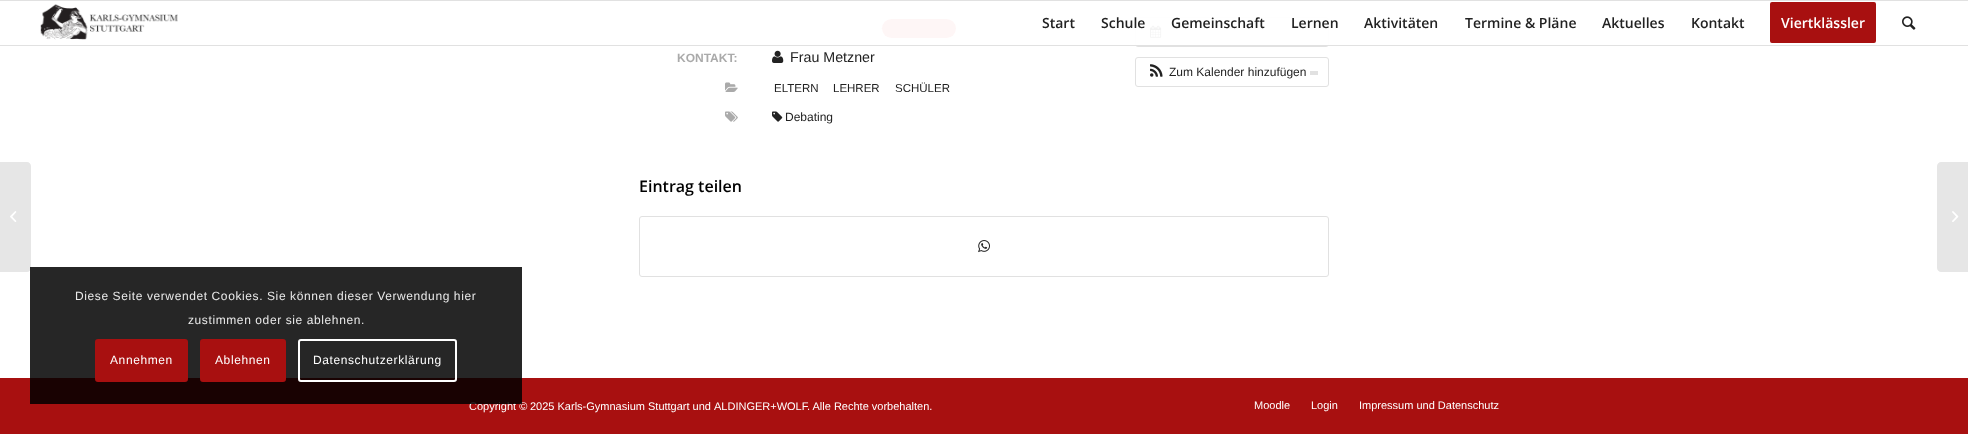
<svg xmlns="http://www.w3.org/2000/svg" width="1968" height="434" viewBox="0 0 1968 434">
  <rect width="100%" height="100%" fill="#ffffff"/>
  <path d="M0 162H27C29 162 31 164 31 166V268C31 270 29 272 27 272H0Z" fill="#e6e6e6"/>
  <rect x="0" y="378" width="1968" height="56" fill="#a81010"/>
  <text x="469" y="410" font-family="Liberation Sans" font-size="11" fill="#ffffff">Copyright ©</text>
  <rect x="30" y="267" width="492" height="137" fill="#000000" fill-opacity="0.85"/>
  <text x="75" y="300" font-family="Liberation Sans" font-size="12" letter-spacing="0.6" fill="#e9e9e9">Diese Seite verwendet Cookies. Sie können dieser Verwendung hier</text>
  <text x="188" y="324" font-family="Liberation Sans" font-size="12" letter-spacing="0.6" fill="#e9e9e9">zustimmen oder sie ablehnen.</text>
  <rect x="96" y="340" width="91" height="41" rx="2" fill="#a81010" stroke="#a81010" stroke-width="2"/>
  <text x="110" y="364" font-family="Liberation Sans" font-size="12" letter-spacing="0.6" fill="#ffffff">Annehmen</text>
  <rect x="201" y="340" width="84" height="41" rx="2" fill="#a81010" stroke="#a81010" stroke-width="2"/>
  <text x="215" y="364" font-family="Liberation Sans" font-size="12" letter-spacing="0.6" fill="#ffffff">Ablehnen</text>
  <rect x="299" y="340" width="157" height="41" rx="2" fill="none" stroke="#ffffff" stroke-width="2"/>
  <text x="313" y="364" font-family="Liberation Sans" font-size="12" letter-spacing="0.6" fill="#ffffff">Datenschutzerklärung</text>
  <rect x="882" y="19" width="74" height="19" rx="9.5" fill="#ed4f4f"/>
  <rect x="1135.5" y="17.5" width="193" height="29" rx="2.5" fill="none" stroke="#e1e1e1"/>
  <image x="1150" y="25" width="12" height="13" href="img8.png"/>
  <rect x="882" y="17" width="447" height="28" fill="#ffffff" fill-opacity="0.95"/>
  <rect x="0" y="0" width="1968" height="1" fill="#e1e1e1"/>
  <rect x="0" y="45" width="1968" height="1" fill="#e1e1e1"/>
  <image x="40" y="4" width="138" height="36" href="img1.png"/>
  <text x="1042" y="28" font-family="'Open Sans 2'" font-size="14" font-weight="600" fill="#222222">Start</text>
  <text x="1101" y="28" font-family="'Open Sans 2'" font-size="14" font-weight="600" fill="#222222">Schule</text>
  <text x="1171" y="28" font-family="'Open Sans 2'" font-size="14" font-weight="600" fill="#222222">Gemeinschaft</text>
  <text x="1291" y="28" font-family="'Open Sans 2'" font-size="14" font-weight="600" fill="#222222">Lernen</text>
  <text x="1364" y="28" font-family="'Open Sans 2'" font-size="14" font-weight="600" fill="#222222">Aktivitäten</text>
  <text x="1465" y="28" font-family="'Open Sans 2'" font-size="14" font-weight="600" fill="#222222">Termine &amp; Pläne</text>
  <text x="1602" y="28" font-family="'Open Sans 2'" font-size="14" font-weight="600" fill="#222222">Aktuelles</text>
  <text x="1691" y="28" font-family="'Open Sans 2'" font-size="14" font-weight="600" fill="#222222">Kontakt</text>
  <rect x="1771" y="3" width="104" height="39" rx="1" fill="#a81010" stroke="#a81010" stroke-width="2"/>
  <text x="1781" y="28" font-family="'Open Sans 2'" font-size="14" font-weight="600" fill="#ffffff">Viertklässler</text>
  <image x="1902" y="16" width="14" height="14" href="img2.png"/>
  <image x="10" y="211" width="7" height="11" href="img3.png"/>
  <text x="677" y="62" font-family="Liberation Sans" font-size="12" font-weight="bold" fill="#aaaaaa">KONTAKT:</text>
  <image x="772" y="50" width="12" height="13" href="img4.png"/>
  <text x="790" y="62" font-family="Liberation Sans" font-size="14.25" fill="#222222">Frau Metzner</text>
  <image x="725" y="82" width="13" height="10" href="img5.png"/>
  <text x="774" y="92" font-family="Liberation Sans" font-size="11.5" fill="#222222">ELTERN</text>
  <text x="833" y="92" font-family="Liberation Sans" font-size="11.5" fill="#222222">LEHRER</text>
  <text x="895" y="92" font-family="Liberation Sans" font-size="11.5" fill="#222222">SCHÜLER</text>
  <image x="725" y="111" width="13" height="11" href="img6.png"/>
  <image x="772" y="111" width="11" height="11" href="img7.png"/>
  <text x="785" y="121" font-family="Liberation Sans" font-size="12" fill="#222222">Debating</text>
  <rect x="1135.5" y="57.5" width="193" height="29" rx="2.5" fill="none" stroke="#e1e1e1"/>
  <image x="1150" y="64" width="13" height="13" href="img9.png"/>
  <text x="1169" y="76" font-family="Liberation Sans" font-size="12" fill="#222222">Zum Kalender hinzufügen</text>
  <rect x="1310" y="71" width="8" height="4" fill="#e1e1e1"/>
  <text x="639" y="192" font-family="Open Sans" font-size="16" font-weight="600" fill="#000000">Eintrag teilen</text>
  <rect x="639.5" y="216.5" width="689" height="60" rx="2.5" fill="none" stroke="#e1e1e1"/>
  <image x="978" y="240" width="12" height="13" href="img10.png"/>
  <text x="530" y="410" font-family="Liberation Sans" font-size="11" fill="#ffffff">2025 Karls-Gymnasium Stuttgart und</text>
  <text x="714" y="410" font-family="Liberation Sans" font-size="11" fill="#ffffff">ALDINGER+WOLF</text>
  <text x="807" y="410" font-family="Liberation Sans" font-size="11" fill="#ffffff">. Alle Rechte vorbehalten.</text>
  <text x="1254" y="409" font-family="Liberation Sans" font-size="11" fill="#ffffff">Moodle</text>
  <text x="1311" y="409" font-family="Liberation Sans" font-size="11" fill="#ffffff">Login</text>
  <text x="1359" y="409" font-family="Liberation Sans" font-size="11" fill="#ffffff">Impressum und Datenschutz</text>
  <path d="M1941 162H1968V272H1941C1939 272 1937 270 1937 268V166C1937 164 1939 162 1941 162Z" fill="#e6e6e6"/>
  <image x="1952" y="211" width="7" height="11" href="img11.png"/>
</svg>
